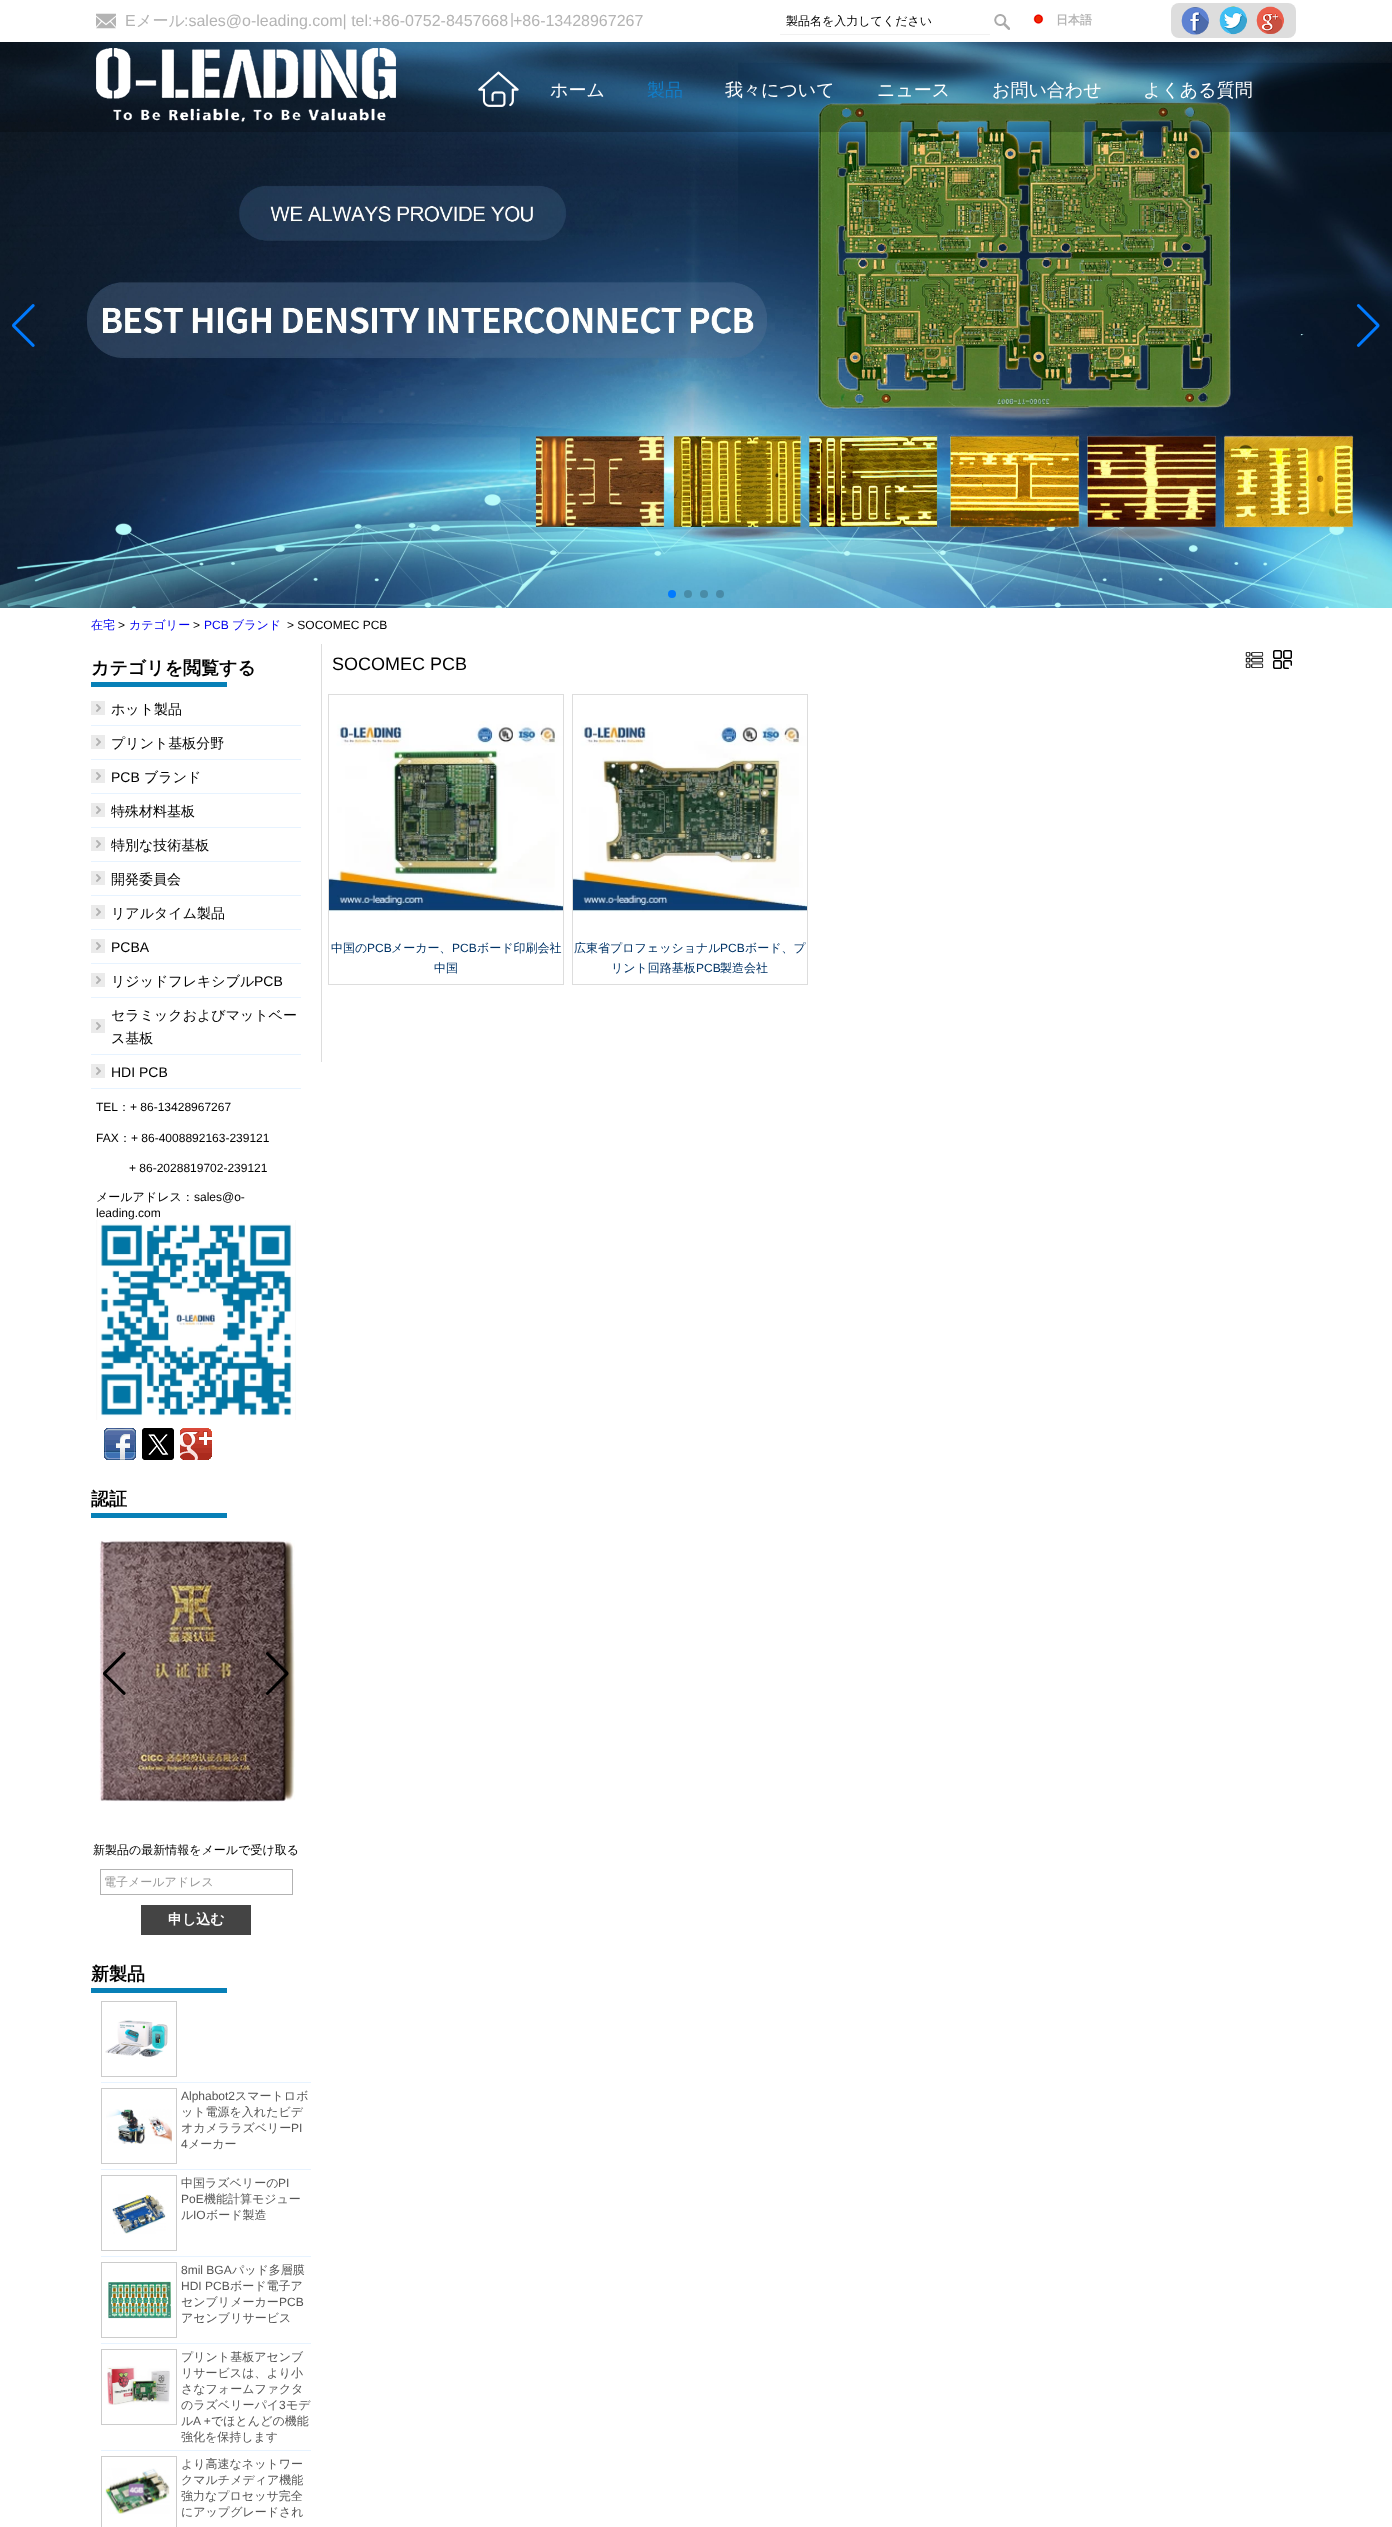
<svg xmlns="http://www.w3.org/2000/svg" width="1392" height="2527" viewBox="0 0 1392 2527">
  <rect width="100%" height="100%" fill="#ffffff"/>
  <image x="96" y="13" width="20" height="16" href="img1.png"/>
  <text x="125" y="26" font-family="Liberation Sans" font-size="16" fill="#b4b4b4">E</text>
  <text x="136" y="26" font-family="WenQuanYi Zen Hei" font-size="16" font-weight="500" fill="#b4b4b4">メール</text>
  <text x="184" y="26" font-family="Liberation Sans" font-size="16" fill="#b4b4b4">:sales@o-leading.com| tel:+86-0752-8457668</text>
  <text x="508" y="26" font-family="WenQuanYi Zen Hei" font-size="16" font-weight="500" fill="#b4b4b4">∣</text>
  <text x="513" y="26" font-family="Liberation Sans" font-size="16" fill="#b4b4b4">+86-13428967267</text>
  <rect x="780" y="34" width="210" height="1" fill="#f1f1f1"/>
  <text x="786" y="25" font-family="WenQuanYi Zen Hei" font-size="12" font-weight="500" fill="#000000">製品名を入力してください</text>
  <image x="994" y="14" width="16" height="16" href="img2.png"/>
  <image x="1033" y="14" width="11" height="10" href="img3.png"/>
  <text x="1056" y="24" font-family="WenQuanYi Zen Hei" font-size="12" font-weight="bold" fill="#b4b4b4">日本語</text>
  <rect x="1171" y="3" width="125" height="35" rx="8" fill="#dddddd"/>
  <image x="1181" y="7" width="28" height="28" href="img4.png"/>
  <image x="1219" y="6" width="28" height="29" href="img5.png"/>
  <image x="1256" y="6" width="28" height="28" href="img6.png"/>
  <image x="0" y="42" width="1392" height="566" href="img7.png"/>
  <image x="12" y="304" width="23" height="43" href="img8.png"/>
  <image x="1356" y="304" width="24" height="43" href="img9.png"/>
  <circle cx="672" cy="594" r="4" fill="#007aff"/>
  <circle cx="688" cy="594" r="4" fill="#000000" fill-opacity="0.2"/>
  <circle cx="704" cy="594" r="4" fill="#000000" fill-opacity="0.2"/>
  <circle cx="720" cy="594" r="4" fill="#000000" fill-opacity="0.2"/>
  <rect x="0" y="42" width="1392" height="90" fill="#000000" fill-opacity="0.2"/>
  <image x="96" y="48" width="300" height="74" href="img10.png"/>
  <image x="478" y="71" width="41" height="36" href="img11.png"/>
  <text x="550" y="96" font-family="WenQuanYi Zen Hei" font-size="18" font-weight="500" fill="#ffffff">ホーム</text>
  <text x="647" y="96" font-family="WenQuanYi Zen Hei" font-size="18" font-weight="500" fill="#117dc8">製品</text>
  <text x="725" y="96" font-family="WenQuanYi Zen Hei" font-size="18" font-weight="500" fill="#ffffff">我々について</text>
  <text x="877" y="96" font-family="WenQuanYi Zen Hei" font-size="18" font-weight="500" fill="#ffffff">ニュース</text>
  <text x="992" y="96" font-family="WenQuanYi Zen Hei" font-size="18" font-weight="500" fill="#ffffff">お問い合わせ</text>
  <text x="1143" y="96" font-family="WenQuanYi Zen Hei" font-size="18" font-weight="500" fill="#ffffff">よくある質問</text>
  <text x="91" y="629" font-family="WenQuanYi Zen Hei" font-size="12" font-weight="500" fill="#0000ee">在宅</text>
  <text x="118" y="629" font-family="Liberation Sans" font-size="12" fill="#000000">&gt;</text>
  <text x="129" y="629" font-family="WenQuanYi Zen Hei" font-size="12" font-weight="500" fill="#0000ee">カテゴリー</text>
  <text x="193" y="629" font-family="Liberation Sans" font-size="12" fill="#000000">&gt;</text>
  <text x="204" y="629" font-family="Liberation Sans" font-size="12" fill="#0000ee">PCB</text>
  <text x="232" y="629" font-family="WenQuanYi Zen Hei" font-size="12" font-weight="500" fill="#0000ee">ブランド</text>
  <text x="287" y="629" font-family="Liberation Sans" font-size="12" fill="#000000">&gt; SOCOMEC PCB</text>
  <text x="91" y="674" font-family="WenQuanYi Zen Hei" font-size="18" font-weight="bold" fill="#000000">カテゴリを閲覧する</text>
  <rect x="91" y="682" width="136" height="5" fill="#0780b7"/>
  <image x="91" y="701" width="14" height="14" href="img12.png"/>
  <rect x="91" y="725" width="210" height="1" fill="#e7f3ff"/>
  <text x="111" y="714" font-family="WenQuanYi Zen Hei" font-size="14" font-weight="500" fill="#000000">ホット製品</text>
  <image x="91" y="735" width="14" height="14" href="img12.png"/>
  <rect x="91" y="759" width="210" height="1" fill="#e7f3ff"/>
  <text x="111" y="748" font-family="WenQuanYi Zen Hei" font-size="14" font-weight="500" fill="#000000">プリント基板分野</text>
  <image x="91" y="769" width="14" height="14" href="img12.png"/>
  <rect x="91" y="793" width="210" height="1" fill="#e7f3ff"/>
  <text x="111" y="782" font-family="Liberation Sans" font-size="14" fill="#000000">PCB</text>
  <text x="144" y="782" font-family="WenQuanYi Zen Hei" font-size="14" font-weight="500" fill="#000000">ブランド</text>
  <image x="91" y="803" width="14" height="14" href="img12.png"/>
  <rect x="91" y="827" width="210" height="1" fill="#e7f3ff"/>
  <text x="111" y="816" font-family="WenQuanYi Zen Hei" font-size="14" font-weight="500" fill="#000000">特殊材料基板</text>
  <image x="91" y="837" width="14" height="14" href="img12.png"/>
  <rect x="91" y="861" width="210" height="1" fill="#e7f3ff"/>
  <text x="111" y="850" font-family="WenQuanYi Zen Hei" font-size="14" font-weight="500" fill="#000000">特別な技術基板</text>
  <image x="91" y="871" width="14" height="14" href="img12.png"/>
  <rect x="91" y="895" width="210" height="1" fill="#e7f3ff"/>
  <text x="111" y="884" font-family="WenQuanYi Zen Hei" font-size="14" font-weight="500" fill="#000000">開発委員会</text>
  <image x="91" y="905" width="14" height="14" href="img12.png"/>
  <rect x="91" y="929" width="210" height="1" fill="#e7f3ff"/>
  <text x="111" y="918" font-family="WenQuanYi Zen Hei" font-size="14" font-weight="500" fill="#000000">リアルタイム製品</text>
  <image x="91" y="939" width="14" height="14" href="img12.png"/>
  <rect x="91" y="963" width="210" height="1" fill="#e7f3ff"/>
  <text x="111" y="952" font-family="Liberation Sans" font-size="14" fill="#000000">PCBA</text>
  <image x="91" y="973" width="14" height="14" href="img12.png"/>
  <rect x="91" y="997" width="210" height="1" fill="#e7f3ff"/>
  <text x="111" y="986" font-family="WenQuanYi Zen Hei" font-size="14" font-weight="500" fill="#000000">リジッドフレキシブル</text>
  <text x="254" y="986" font-family="Liberation Sans" font-size="14" fill="#000000">PCB</text>
  <image x="91" y="1019" width="14" height="14" href="img12.png"/>
  <rect x="91" y="1054" width="210" height="1" fill="#e7f3ff"/>
  <text x="111" y="1020" font-family="WenQuanYi Zen Hei" font-size="14" font-weight="500" fill="#000000">セラミックおよびマットベー</text>
  <text x="111" y="1043" font-family="WenQuanYi Zen Hei" font-size="14" font-weight="500" fill="#000000">ス基板</text>
  <image x="91" y="1064" width="14" height="14" href="img12.png"/>
  <rect x="91" y="1088" width="210" height="1" fill="#e7f3ff"/>
  <text x="111" y="1077" font-family="Liberation Sans" font-size="14" fill="#000000">HDI PCB</text>
  <text x="96" y="1111" font-family="Liberation Sans" font-size="12" fill="#000000">TEL</text>
  <text x="118" y="1111" font-family="WenQuanYi Zen Hei" font-size="12" font-weight="500" fill="#000000">：</text>
  <text x="130" y="1111" font-family="Liberation Sans" font-size="12" fill="#000000">+ 86-13428967267</text>
  <text x="96" y="1142" font-family="Liberation Sans" font-size="12" fill="#000000">FAX</text>
  <text x="119" y="1142" font-family="WenQuanYi Zen Hei" font-size="12" font-weight="500" fill="#000000">：</text>
  <text x="131" y="1142" font-family="Liberation Sans" font-size="12" fill="#000000">+ 86-4008892163-239121</text>
  <text x="129" y="1172" font-family="Liberation Sans" font-size="12" fill="#000000">+ 86-2028819702-239121</text>
  <text x="96" y="1201" font-family="WenQuanYi Zen Hei" font-size="12" font-weight="500" fill="#000000">メールアドレス：</text>
  <text x="194" y="1201" font-family="Liberation Sans" font-size="12" fill="#000000">sales@o-</text>
  <text x="96" y="1217" font-family="Liberation Sans" font-size="12" fill="#000000">leading.com</text>
  <image x="96" y="1220" width="200" height="200" href="img13.png"/>
  <image x="104" y="1428" width="32" height="32" href="img14.png"/>
  <image x="142" y="1428" width="32" height="32" href="img15.png"/>
  <image x="180" y="1428" width="32" height="32" href="img16.png"/>
  <text x="91" y="1505" font-family="WenQuanYi Zen Hei" font-size="18" font-weight="bold" fill="#000000">認証</text>
  <rect x="91" y="1513" width="136" height="5" fill="#0780b7"/>
  <image x="99" y="1540" width="196" height="262" href="img17.png"/>
  <image x="103" y="1652" width="23" height="43" href="img18.png"/>
  <image x="265" y="1652" width="24" height="43" href="img19.png"/>
  <text x="93" y="1854" font-family="WenQuanYi Zen Hei" font-size="12" font-weight="500" fill="#000000">新製品の最新情報をメールで受け取る</text>
  <rect x="100.5" y="1869.5" width="192" height="25" fill="none" stroke="#b2b2b2"/>
  <text x="104" y="1886" font-family="WenQuanYi Zen Hei" font-size="12" font-weight="500" fill="#999999">電子メールアドレス</text>
  <rect x="141" y="1905" width="110" height="30" fill="#444444"/>
  <text x="168" y="1924" font-family="WenQuanYi Zen Hei" font-size="14" font-weight="bold" fill="#ffffff">申し込む</text>
  <text x="91" y="1980" font-family="WenQuanYi Zen Hei" font-size="18" font-weight="bold" fill="#000000">新製品</text>
  <rect x="91" y="1988" width="136" height="5" fill="#0780b7"/>
  <rect x="101" y="2082" width="210" height="1" fill="#e7f3ff"/>
  <rect x="101.5" y="2001.5" width="75" height="75" fill="none" stroke="#cccccc"/>
  <image x="105" y="2020" width="63" height="37" href="img20.png"/>
  <rect x="101" y="2169" width="210" height="1" fill="#e7f3ff"/>
  <rect x="101.5" y="2088.5" width="75" height="75" fill="none" stroke="#cccccc"/>
  <image x="106" y="2109" width="66" height="35" href="img21.png"/>
  <text x="181" y="2100" font-family="Liberation Sans" font-size="12" fill="#555555">Alphabot2</text>
  <text x="235" y="2100" font-family="WenQuanYi Zen Hei" font-size="12" font-weight="500" fill="#555555">スマートロボ</text>
  <text x="181" y="2116" font-family="WenQuanYi Zen Hei" font-size="12" font-weight="500" fill="#555555">ット電源を入れたビデ</text>
  <text x="181" y="2132" font-family="WenQuanYi Zen Hei" font-size="12" font-weight="500" fill="#555555">オカメララズベリー</text>
  <text x="291" y="2132" font-family="Liberation Sans" font-size="12" fill="#555555">PI</text>
  <text x="181" y="2148" font-family="Liberation Sans" font-size="12" fill="#555555">4</text>
  <text x="188" y="2148" font-family="WenQuanYi Zen Hei" font-size="12" font-weight="500" fill="#555555">メーカー</text>
  <rect x="101" y="2256" width="210" height="1" fill="#e7f3ff"/>
  <rect x="101.5" y="2175.5" width="75" height="75" fill="none" stroke="#cccccc"/>
  <image x="112" y="2194" width="54" height="40" href="img22.png"/>
  <text x="181" y="2187" font-family="WenQuanYi Zen Hei" font-size="12" font-weight="500" fill="#555555">中国ラズベリーの</text>
  <text x="278" y="2187" font-family="Liberation Sans" font-size="12" fill="#555555">PI</text>
  <text x="181" y="2203" font-family="Liberation Sans" font-size="12" fill="#555555">PoE</text>
  <text x="204" y="2203" font-family="WenQuanYi Zen Hei" font-size="12" font-weight="500" fill="#555555">機能計算モジュー</text>
  <text x="181" y="2219" font-family="WenQuanYi Zen Hei" font-size="12" font-weight="500" fill="#555555">ル</text>
  <text x="193" y="2219" font-family="Liberation Sans" font-size="12" fill="#555555">IO</text>
  <text x="206" y="2219" font-family="WenQuanYi Zen Hei" font-size="12" font-weight="500" fill="#555555">ボード製造</text>
  <rect x="101" y="2343" width="210" height="1" fill="#e7f3ff"/>
  <rect x="101.5" y="2262.5" width="75" height="75" fill="none" stroke="#cccccc"/>
  <image x="108" y="2281" width="64" height="38" href="img23.png"/>
  <text x="181" y="2274" font-family="Liberation Sans" font-size="12" fill="#555555">8mil BGA</text>
  <text x="232" y="2274" font-family="WenQuanYi Zen Hei" font-size="12" font-weight="500" fill="#555555">パッド多層膜</text>
  <text x="181" y="2290" font-family="Liberation Sans" font-size="12" fill="#555555">HDI PCB</text>
  <text x="230" y="2290" font-family="WenQuanYi Zen Hei" font-size="12" font-weight="500" fill="#555555">ボード電子ア</text>
  <text x="181" y="2306" font-family="WenQuanYi Zen Hei" font-size="12" font-weight="500" fill="#555555">センブリメーカー</text>
  <text x="279" y="2306" font-family="Liberation Sans" font-size="12" fill="#555555">PCB</text>
  <text x="181" y="2322" font-family="WenQuanYi Zen Hei" font-size="12" font-weight="500" fill="#555555">アセンブリサービス</text>
  <rect x="101" y="2450" width="210" height="1" fill="#e7f3ff"/>
  <rect x="101.5" y="2349.5" width="75" height="75" fill="none" stroke="#cccccc"/>
  <image x="107" y="2366" width="63" height="39" href="img24.png"/>
  <text x="181" y="2361" font-family="WenQuanYi Zen Hei" font-size="12" font-weight="500" fill="#555555">プリント基板アセンブ</text>
  <text x="181" y="2377" font-family="WenQuanYi Zen Hei" font-size="12" font-weight="500" fill="#555555">リサービスは、より小</text>
  <text x="181" y="2393" font-family="WenQuanYi Zen Hei" font-size="12" font-weight="500" fill="#555555">さなフォームファクタ</text>
  <text x="181" y="2409" font-family="WenQuanYi Zen Hei" font-size="12" font-weight="500" fill="#555555">のラズベリーパイ</text>
  <text x="279" y="2409" font-family="Liberation Sans" font-size="12" fill="#555555">3</text>
  <text x="286" y="2409" font-family="WenQuanYi Zen Hei" font-size="12" font-weight="500" fill="#555555">モデ</text>
  <text x="181" y="2425" font-family="WenQuanYi Zen Hei" font-size="12" font-weight="500" fill="#555555">ル</text>
  <text x="193" y="2425" font-family="Liberation Sans" font-size="12" fill="#555555">A +</text>
  <text x="211" y="2425" font-family="WenQuanYi Zen Hei" font-size="12" font-weight="500" fill="#555555">でほとんどの機能</text>
  <text x="181" y="2441" font-family="WenQuanYi Zen Hei" font-size="12" font-weight="500" fill="#555555">強化を保持します</text>
  <rect x="101.5" y="2456.5" width="75" height="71" fill="none" stroke="#cccccc"/>
  <image x="105" y="2468" width="65" height="46" href="img25.png"/>
  <text x="181" y="2468" font-family="WenQuanYi Zen Hei" font-size="12" font-weight="500" fill="#555555">より高速なネットワー</text>
  <text x="181" y="2484" font-family="WenQuanYi Zen Hei" font-size="12" font-weight="500" fill="#555555">クマルチメディア機能</text>
  <text x="181" y="2500" font-family="WenQuanYi Zen Hei" font-size="12" font-weight="500" fill="#555555">強力なプロセッサ完全</text>
  <text x="181" y="2516" font-family="WenQuanYi Zen Hei" font-size="12" font-weight="500" fill="#555555">にアップグレードされ</text>
  <rect x="321" y="644" width="1" height="418" fill="#dddddd"/>
  <text x="332" y="670" font-family="Liberation Sans" font-size="18" fill="#000000">SOCOMEC PCB</text>
  <image x="1245" y="652" width="19" height="16" href="img26.png"/>
  <image x="1273" y="650" width="19" height="19" href="img27.png"/>
  <rect x="328.5" y="694.5" width="235" height="290" fill="none" stroke="#dddddd"/>
  <image x="329" y="721" width="234" height="191" href="img28.png"/>
  <text x="331" y="952" font-family="WenQuanYi Zen Hei" font-size="12" font-weight="500" fill="#003366">中国の</text>
  <text x="367" y="952" font-family="Liberation Sans" font-size="12" fill="#003366">PCB</text>
  <text x="391" y="952" font-family="WenQuanYi Zen Hei" font-size="12" font-weight="500" fill="#003366">メーカー、</text>
  <text x="452" y="952" font-family="Liberation Sans" font-size="12" fill="#003366">PCB</text>
  <text x="477" y="952" font-family="WenQuanYi Zen Hei" font-size="12" font-weight="500" fill="#003366">ボード印刷会社</text>
  <text x="434" y="972" font-family="WenQuanYi Zen Hei" font-size="12" font-weight="500" fill="#003366">中国</text>
  <rect x="572.5" y="694.5" width="235" height="290" fill="none" stroke="#dddddd"/>
  <image x="573" y="724" width="234" height="188" href="img29.png"/>
  <text x="574" y="952" font-family="WenQuanYi Zen Hei" font-size="12" font-weight="500" fill="#003366">広東省プロフェッショナル</text>
  <text x="720" y="952" font-family="Liberation Sans" font-size="12" fill="#003366">PCB</text>
  <text x="745" y="952" font-family="WenQuanYi Zen Hei" font-size="12" font-weight="500" fill="#003366">ボード、プ</text>
  <text x="611" y="972" font-family="WenQuanYi Zen Hei" font-size="12" font-weight="500" fill="#003366">リント回路基板</text>
  <text x="696" y="972" font-family="Liberation Sans" font-size="12" fill="#003366">PCB</text>
  <text x="720" y="972" font-family="WenQuanYi Zen Hei" font-size="12" font-weight="500" fill="#003366">製造会社</text>
</svg>
